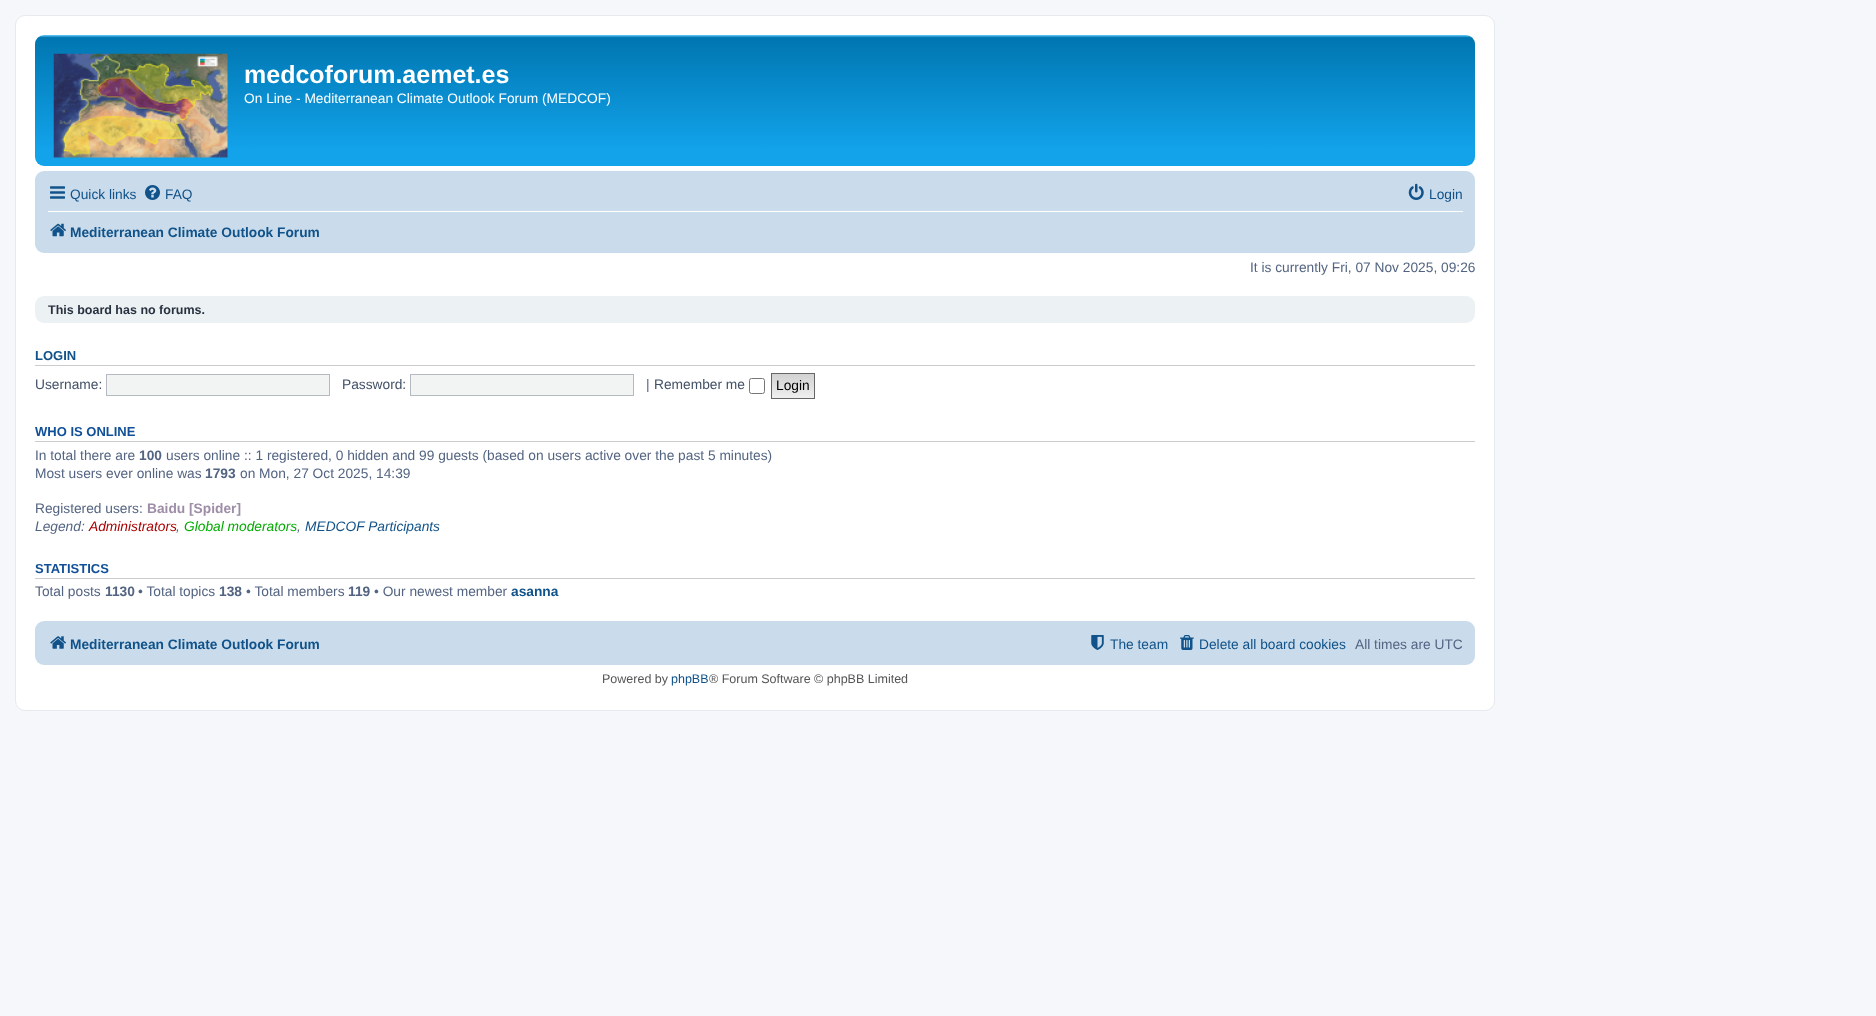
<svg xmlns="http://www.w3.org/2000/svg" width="1876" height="1016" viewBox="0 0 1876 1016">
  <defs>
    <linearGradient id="g1" gradientUnits="userSpaceOnUse" x1="755" y1="35" x2="755" y2="166"><stop offset="0" stop-color="#6aceff"/><stop offset="0.02" stop-color="#0076b1"/><stop offset="0.88" stop-color="#12a3eb"/><stop offset="1" stop-color="#12a3eb"/></linearGradient>
    <linearGradient id="g2" gradientUnits="userSpaceOnUse" x1="793" y1="374" x2="793" y2="398"><stop offset="0" stop-color="#d2d2d2"/><stop offset="1" stop-color="#efefef"/></linearGradient>
  </defs>
  <rect width="100%" height="100%" fill="#f5f7fa"/>
  <rect x="15.5" y="15.5" width="1479" height="695" rx="9.5" fill="#ffffff" stroke="#e6e9ed"/>
  <rect x="35" y="35" width="1440" height="131" rx="9" fill="url(#g1)"/>
  <image x="53" y="53" width="175" height="105" href="img1.png"/>
  <text x="244" y="83" font-family="Liberation Sans" font-size="25" font-weight="bold" fill="#ffffff">medcoforum.aemet.es</text>
  <text x="244" y="103" font-family="Liberation Sans" font-size="13.75" fill="#ffffff">On Line - Mediterranean Climate Outlook Forum (MEDCOF)</text>
  <rect x="35" y="171" width="1440" height="82" rx="9" fill="#cadceb"/>
  <image x="50" y="186" width="15" height="13" href="img2.png"/>
  <text x="70" y="199" font-family="Liberation Sans" font-size="13.75" fill="#105289">Quick links</text>
  <image x="145" y="185" width="15" height="15" href="img3.png"/>
  <text x="165" y="199" font-family="Liberation Sans" font-size="13.75" fill="#105289">FAQ</text>
  <image x="1408" y="183" width="16" height="17" href="img4.png"/>
  <text x="1429" y="199" font-family="Liberation Sans" font-size="13.75" fill="#105289">Login</text>
  <rect x="48" y="211" width="1415" height="1" fill="#ffffff"/>
  <image x="50" y="223" width="16" height="14" href="img5.png"/>
  <text x="70" y="237" font-family="Liberation Sans" font-size="13.75" font-weight="bold" fill="#105289">Mediterranean Climate Outlook Forum</text>
  <text x="1250" y="272" font-family="Liberation Sans" font-size="13.75" fill="#536482">It is currently Fri, 07 Nov 2025, 09:26</text>
  <rect x="35" y="296" width="1440" height="27" rx="9" fill="#ecf1f3"/>
  <text x="48" y="314" font-family="Liberation Sans" font-size="12.5" font-weight="bold" fill="#28313f">This board has no forums.</text>
  <rect x="35" y="365" width="1440" height="1" fill="#cccccc"/>
  <text x="35" y="360" font-family="Liberation Sans" font-size="13" font-weight="bold" fill="#105289">LOGIN</text>
  <text x="35" y="389" font-family="Liberation Sans" font-size="13.75" fill="#425067">Username:</text>
  <rect x="106.5" y="374.5" width="223" height="21" fill="#f2f3f3" stroke="#b4bac0"/>
  <text x="342" y="389" font-family="Liberation Sans" font-size="13.75" fill="#425067">Password:</text>
  <rect x="410.5" y="374.5" width="223" height="21" fill="#f2f3f3" stroke="#b4bac0"/>
  <text x="646" y="389" font-family="Liberation Sans" font-size="13.75" fill="#536482">|</text>
  <text x="654" y="389" font-family="Liberation Sans" font-size="13.75" fill="#425067">Remember me</text>
  <rect x="749.5" y="378.5" width="15" height="15" rx="2" fill="none" stroke="#767676"/>
  <rect x="772" y="374" width="42" height="24" fill="url(#g2)"/>
  <rect x="771.5" y="373.5" width="43" height="25" fill="none" stroke="#666666"/>
  <text x="776" y="390" font-family="Liberation Sans" font-size="13.75" fill="#000000">Login</text>
  <rect x="35" y="441" width="1440" height="1" fill="#cccccc"/>
  <text x="35" y="436" font-family="Liberation Sans" font-size="13" font-weight="bold" fill="#115098">WHO IS ONLINE</text>
  <text x="35" y="460" font-family="Liberation Sans" font-size="13.75" fill="#536482">In total there are</text>
  <text x="139" y="460" font-family="Liberation Sans" font-size="13.75" font-weight="bold" fill="#536482">100</text>
  <text x="166" y="460" font-family="Liberation Sans" font-size="13.75" fill="#536482">users online :: 1 registered, 0 hidden and 99 guests (based on users active over the past 5 minutes)</text>
  <text x="35" y="478" font-family="Liberation Sans" font-size="13.75" fill="#536482">Most users ever online was</text>
  <text x="205" y="478" font-family="Liberation Sans" font-size="13.75" font-weight="bold" fill="#536482">1793</text>
  <text x="240" y="478" font-family="Liberation Sans" font-size="13.75" fill="#536482">on Mon, 27 Oct 2025, 14:39</text>
  <text x="35" y="513" font-family="Liberation Sans" font-size="13.75" fill="#536482">Registered users:</text>
  <text x="147" y="513" font-family="Liberation Sans" font-size="13.75" font-weight="bold" fill="#9e8da7">Baidu [Spider]</text>
  <text x="35" y="531" font-family="Liberation Sans" font-size="13.75" font-style="italic" fill="#536482">Legend:</text>
  <text x="89" y="531" font-family="Liberation Sans" font-size="13.75" font-style="italic" fill="#aa0000">Administrators</text>
  <text x="176" y="531" font-family="Liberation Sans" font-size="13.75" font-style="italic" fill="#536482">,</text>
  <text x="184" y="531" font-family="Liberation Sans" font-size="13.75" font-style="italic" fill="#00aa00">Global moderators</text>
  <text x="297" y="531" font-family="Liberation Sans" font-size="13.75" font-style="italic" fill="#536482">,</text>
  <text x="305" y="531" font-family="Liberation Sans" font-size="13.75" font-style="italic" fill="#105289">MEDCOF Participants</text>
  <rect x="35" y="578" width="1440" height="1" fill="#cccccc"/>
  <text x="35" y="573" font-family="Liberation Sans" font-size="13" font-weight="bold" fill="#115098">STATISTICS</text>
  <text x="35" y="596" font-family="Liberation Sans" font-size="13.75" fill="#536482">Total posts</text>
  <text x="105" y="596" font-family="Liberation Sans" font-size="13.75" font-weight="bold" fill="#536482">1130</text>
  <text x="138" y="596" font-family="Liberation Sans" font-size="13.75" fill="#536482">• Total topics</text>
  <text x="219" y="596" font-family="Liberation Sans" font-size="13.75" font-weight="bold" fill="#536482">138</text>
  <text x="246" y="596" font-family="Liberation Sans" font-size="13.75" fill="#536482">• Total members</text>
  <text x="348" y="596" font-family="Liberation Sans" font-size="13.75" font-weight="bold" fill="#536482">119</text>
  <text x="374" y="596" font-family="Liberation Sans" font-size="13.75" fill="#536482">• Our newest member</text>
  <text x="511" y="596" font-family="Liberation Sans" font-size="13.75" font-weight="bold" fill="#105289">asanna</text>
  <rect x="35" y="621" width="1440" height="44" rx="9" fill="#cadceb"/>
  <image x="50" y="636" width="16" height="13" href="img6.png"/>
  <text x="70" y="649" font-family="Liberation Sans" font-size="13.75" font-weight="bold" fill="#105289">Mediterranean Climate Outlook Forum</text>
  <image x="1091" y="635" width="13" height="15" href="img7.png"/>
  <text x="1110" y="649" font-family="Liberation Sans" font-size="13.75" fill="#105289">The team</text>
  <image x="1180" y="635" width="14" height="15" href="img8.png"/>
  <text x="1199" y="649" font-family="Liberation Sans" font-size="13.75" fill="#105289">Delete all board cookies</text>
  <text x="1355" y="649" font-family="Liberation Sans" font-size="13.75" fill="#536482">All times are UTC</text>
  <text x="602" y="683" font-family="Liberation Sans" font-size="12.5" fill="#555555">Powered by</text>
  <text x="671" y="683" font-family="Liberation Sans" font-size="12.5" fill="#105289">phpBB</text>
  <text x="709" y="683" font-family="Liberation Sans" font-size="12.5" fill="#555555">® Forum Software © phpBB Limited</text>
</svg>
